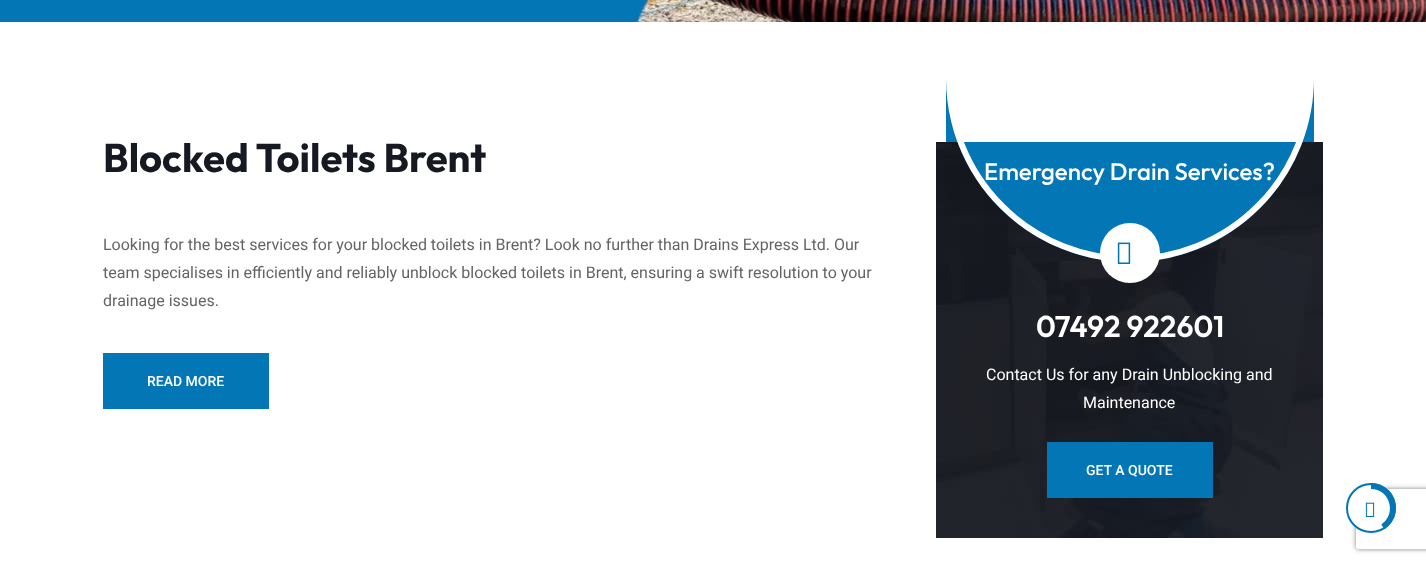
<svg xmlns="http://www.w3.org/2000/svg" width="1426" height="563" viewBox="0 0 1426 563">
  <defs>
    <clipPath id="clip1"><rect x="936" y="142" width="387" height="396"/></clipPath>
    <clipPath id="clip2"><path d="M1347 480H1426V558H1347ZM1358 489H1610C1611 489 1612 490 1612 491V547C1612 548 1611 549 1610 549H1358C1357 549 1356 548 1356 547V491C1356 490 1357 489 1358 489Z" clip-rule="evenodd"/></clipPath>
    <filter id="blur1" x="-50%" y="-200%" width="200%" height="500%"><feGaussianBlur stdDeviation="2.5"/></filter>
    <clipPath id="clip3"><rect x="1346" y="483" width="50" height="50" rx="25"/></clipPath>
  </defs>
  <rect width="100%" height="100%" fill="#ffffff"/>
  <image x="0" y="0" width="1426" height="22" href="img1.png"/>
  <text x="103" y="172" font-family="Outfit" font-size="40" font-weight="bold" fill="#161921">Blocked Toilets Brent</text>
  <text x="103" y="250" font-family="Roboto" font-size="16" fill="#646464">Looking for the best services for your blocked toilets in Brent? Look no further than Drains Express Ltd. Our</text>
  <text x="103" y="278" font-family="Roboto" font-size="16" fill="#646464">team specialises in efficiently and reliably unblock blocked toilets in Brent, ensuring a swift resolution to your</text>
  <text x="103" y="306" font-family="Roboto" font-size="16" fill="#646464">drainage issues.</text>
  <rect x="103" y="353" width="166" height="56" fill="#0376b6"/>
  <text x="147" y="386" font-family="Roboto" font-size="14" font-weight="500" fill="#ffffff">READ MORE</text>
  <image x="936" y="142" width="387" height="396" href="img2.png"/>
  <path d="M946 142H1314V78C1314 179.5 1231.5 262 1130 262C1028.5 262 946 179.5 946 78Z" fill="#0376b6"/>
  <g clip-path="url(#clip1)">
    <circle cx="1130" cy="78" r="181" fill="none" stroke="#ffffff" stroke-width="6"/>
  </g>
  <text x="984" y="180" font-family="Outfit" font-size="24" font-weight="500" fill="#ffffff">Emergency Drain Services?</text>
  <circle cx="1130" cy="253" r="30" fill="#ffffff"/>
  <image x="1117" y="242" width="14" height="22" href="img3.png"/>
  <text x="1036" y="337" font-family="Outfit" font-size="30" font-weight="600" fill="#ffffff">07492 922601</text>
  <text x="986" y="380" font-family="Roboto" font-size="16" fill="#ffffff">Contact Us for any Drain Unblocking and</text>
  <text x="1083" y="408" font-family="Roboto" font-size="16" fill="#ffffff">Maintenance</text>
  <rect x="1047" y="442" width="166" height="56" fill="#0376b6"/>
  <text x="1086" y="475" font-family="Roboto" font-size="14" font-weight="500" fill="#ffffff">GET A QUOTE</text>
  <g clip-path="url(#clip2)">
    <rect x="1356" y="489" width="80" height="60" rx="2" fill="#808080" filter="url(#blur1)"/>
  </g>
  <circle cx="1371" cy="508" r="25" fill="#ffffff"/>
  <g clip-path="url(#clip3)">
    <path d="M1371 484C1395 484 1403.5 515.5 1384 528.5" fill="none" stroke="#0376b6" stroke-width="9.8"/>
  </g>
  <circle cx="1371" cy="508" r="24" fill="none" stroke="#0376b6" stroke-width="2"/>
  <image x="1365" y="502" width="10" height="15" href="img4.png"/>
</svg>
